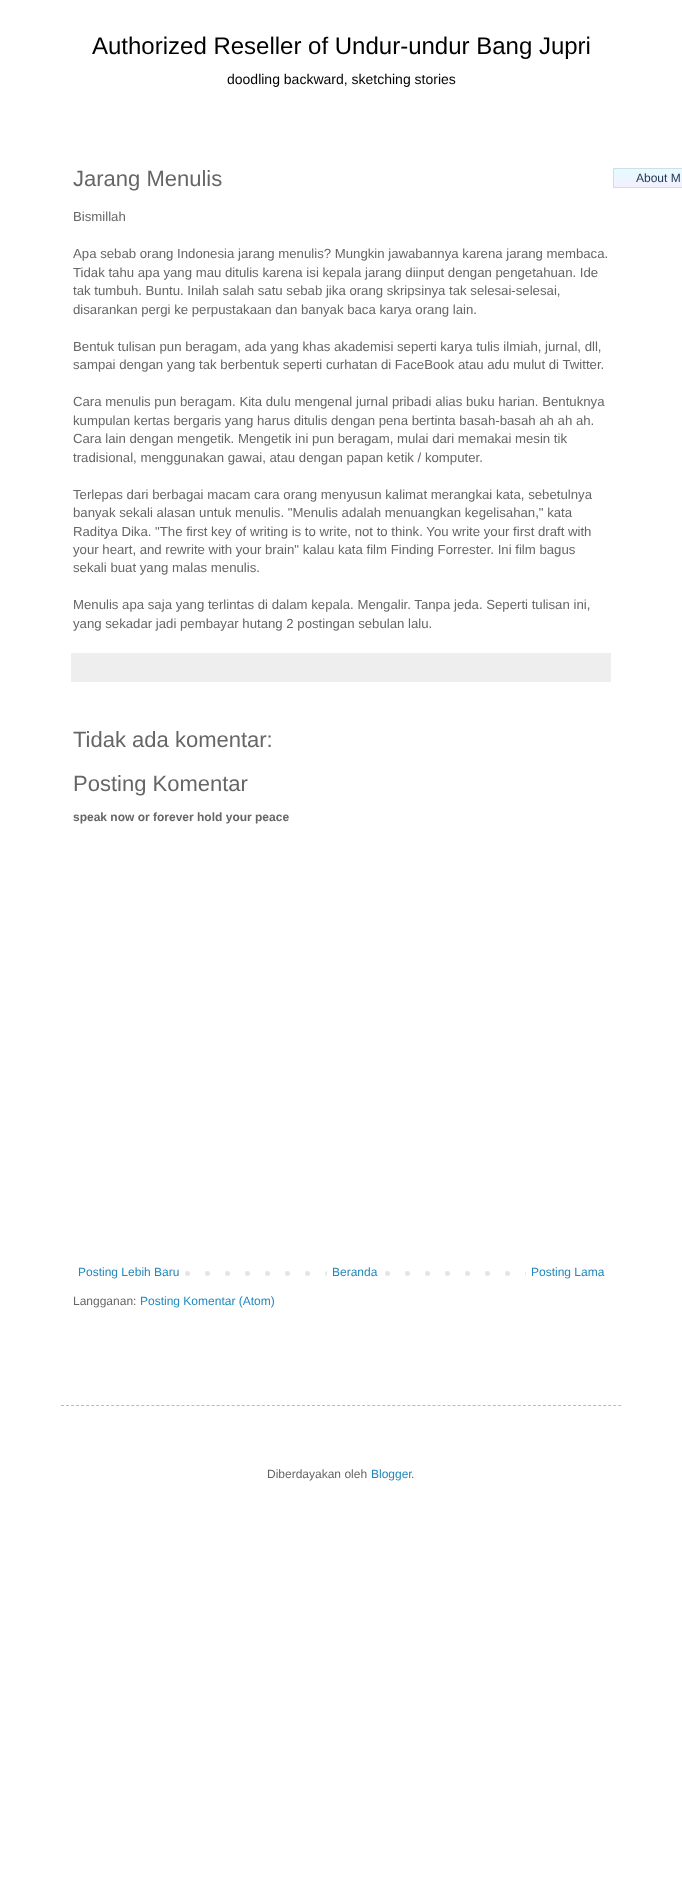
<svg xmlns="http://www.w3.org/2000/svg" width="682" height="1886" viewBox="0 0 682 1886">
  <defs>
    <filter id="blur1" x="-50%" y="-200%" width="200%" height="500%"><feGaussianBlur stdDeviation="0.5"/></filter>
    <linearGradient id="g1" gradientUnits="userSpaceOnUse" x1="662" y1="169" x2="662" y2="187"><stop offset="0" stop-color="#e5fbff"/><stop offset="1" stop-color="#f4f0ff"/></linearGradient>
  </defs>
  <rect width="100%" height="100%" fill="#ffffff"/>
  <text x="92" y="54" font-family="Liberation Sans" font-size="24" fill="#000000">Authorized Reseller of Undur-undur Bang Jupri</text>
  <text x="227" y="84" font-family="Liberation Sans" font-size="14" fill="#000000">doodling backward, sketching stories</text>
  <text x="73" y="186" font-family="Liberation Sans" font-size="22" fill="#666666">Jarang Menulis</text>
  <text x="73" y="221" font-family="Liberation Sans" font-size="13.2" fill="#666666">Bismillah</text>
  <text x="73" y="258" font-family="Liberation Sans" font-size="13.2" fill="#666666">Apa sebab orang Indonesia jarang menulis? Mungkin jawabannya karena jarang membaca.</text>
  <text x="73" y="277" font-family="Liberation Sans" font-size="13.2" fill="#666666">Tidak tahu apa yang mau ditulis karena isi kepala jarang diinput dengan pengetahuan. Ide</text>
  <text x="73" y="295" font-family="Liberation Sans" font-size="13.2" fill="#666666">tak tumbuh. Buntu. Inilah salah satu sebab jika orang skripsinya tak selesai-selesai,</text>
  <text x="73" y="314" font-family="Liberation Sans" font-size="13.2" fill="#666666">disarankan pergi ke perpustakaan dan banyak baca karya orang lain.</text>
  <text x="73" y="351" font-family="Liberation Sans" font-size="13.2" fill="#666666">Bentuk tulisan pun beragam, ada yang khas akademisi seperti karya tulis ilmiah, jurnal, dll,</text>
  <text x="73" y="369" font-family="Liberation Sans" font-size="13.2" fill="#666666">sampai dengan yang tak berbentuk seperti curhatan di FaceBook atau adu mulut di Twitter.</text>
  <text x="73" y="406" font-family="Liberation Sans" font-size="13.2" fill="#666666">Cara menulis pun beragam. Kita dulu mengenal jurnal pribadi alias buku harian. Bentuknya</text>
  <text x="73" y="425" font-family="Liberation Sans" font-size="13.2" fill="#666666">kumpulan kertas bergaris yang harus ditulis dengan pena bertinta basah-basah ah ah ah.</text>
  <text x="73" y="443" font-family="Liberation Sans" font-size="13.2" fill="#666666">Cara lain dengan mengetik. Mengetik ini pun beragam, mulai dari memakai mesin tik</text>
  <text x="73" y="462" font-family="Liberation Sans" font-size="13.2" fill="#666666">tradisional, menggunakan gawai, atau dengan papan ketik / komputer.</text>
  <text x="73" y="499" font-family="Liberation Sans" font-size="13.2" fill="#666666">Terlepas dari berbagai macam cara orang menyusun kalimat merangkai kata, sebetulnya</text>
  <text x="73" y="517" font-family="Liberation Sans" font-size="13.2" fill="#666666">banyak sekali alasan untuk menulis. "Menulis adalah menuangkan kegelisahan," kata</text>
  <text x="73" y="536" font-family="Liberation Sans" font-size="13.2" fill="#666666">Raditya Dika. "The first key of writing is to write, not to think. You write your first draft with</text>
  <text x="73" y="554" font-family="Liberation Sans" font-size="13.2" fill="#666666">your heart, and rewrite with your brain" kalau kata film Finding Forrester. Ini film bagus</text>
  <text x="73" y="572" font-family="Liberation Sans" font-size="13.2" fill="#666666">sekali buat yang malas menulis.</text>
  <text x="73" y="609" font-family="Liberation Sans" font-size="13.2" fill="#666666">Menulis apa saja yang terlintas di dalam kepala. Mengalir. Tanpa jeda. Seperti tulisan ini,</text>
  <text x="73" y="628" font-family="Liberation Sans" font-size="13.2" fill="#666666">yang sekadar jadi pembayar hutang 2 postingan sebulan lalu.</text>
  <rect x="71" y="653" width="540" height="29" fill="#eeeeee"/>
  <text x="73" y="747" font-family="Liberation Sans" font-size="22" fill="#666666">Tidak ada komentar:</text>
  <text x="73" y="791" font-family="Liberation Sans" font-size="22" fill="#666666">Posting Komentar</text>
  <text x="73" y="821" font-family="Liberation Sans" font-size="12" font-weight="bold" fill="#666666">speak now or forever hold your peace</text>
  <image x="185" y="1271" width="341" height="5" href="img1.png"/>
  <text x="78" y="1276" font-family="Liberation Sans" font-size="12" fill="#2288bb">Posting Lebih Baru</text>
  <rect x="327" y="1271" width="44" height="5" fill="#ffffff"/>
  <text x="332" y="1276" font-family="Liberation Sans" font-size="12" fill="#2288bb">Beranda</text>
  <text x="531" y="1276" font-family="Liberation Sans" font-size="12" fill="#2288bb">Posting Lama</text>
  <text x="73" y="1305" font-family="Liberation Sans" font-size="12" fill="#666666">Langganan:</text>
  <text x="140" y="1305" font-family="Liberation Sans" font-size="12" fill="#2288bb">Posting Komentar (Atom)</text>
  <rect x="613" y="168" width="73" height="20" rx="2" fill="#808080" fill-opacity="0.6" filter="url(#blur1)"/>
  <rect x="613" y="169" width="69" height="18" fill="url(#g1)"/>
  <rect x="613.5" y="168.5" width="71" height="19" rx="1.5" fill="none" stroke="#cee0e7"/>
  <text x="636" y="182" font-family="Liberation Sans" font-size="12" fill="#1b3650">About M</text>
  <path d="M61 1405.5H621" fill="none" stroke="#bbbbbb" stroke-dasharray="3 2.02"/>
  <text x="267" y="1478" font-family="Liberation Sans" font-size="12" fill="#666666">Diberdayakan oleh</text>
  <text x="371" y="1478" font-family="Liberation Sans" font-size="12" fill="#2288bb">Blogger</text>
  <text x="411" y="1478" font-family="Liberation Sans" font-size="12" fill="#666666">.</text>
</svg>
